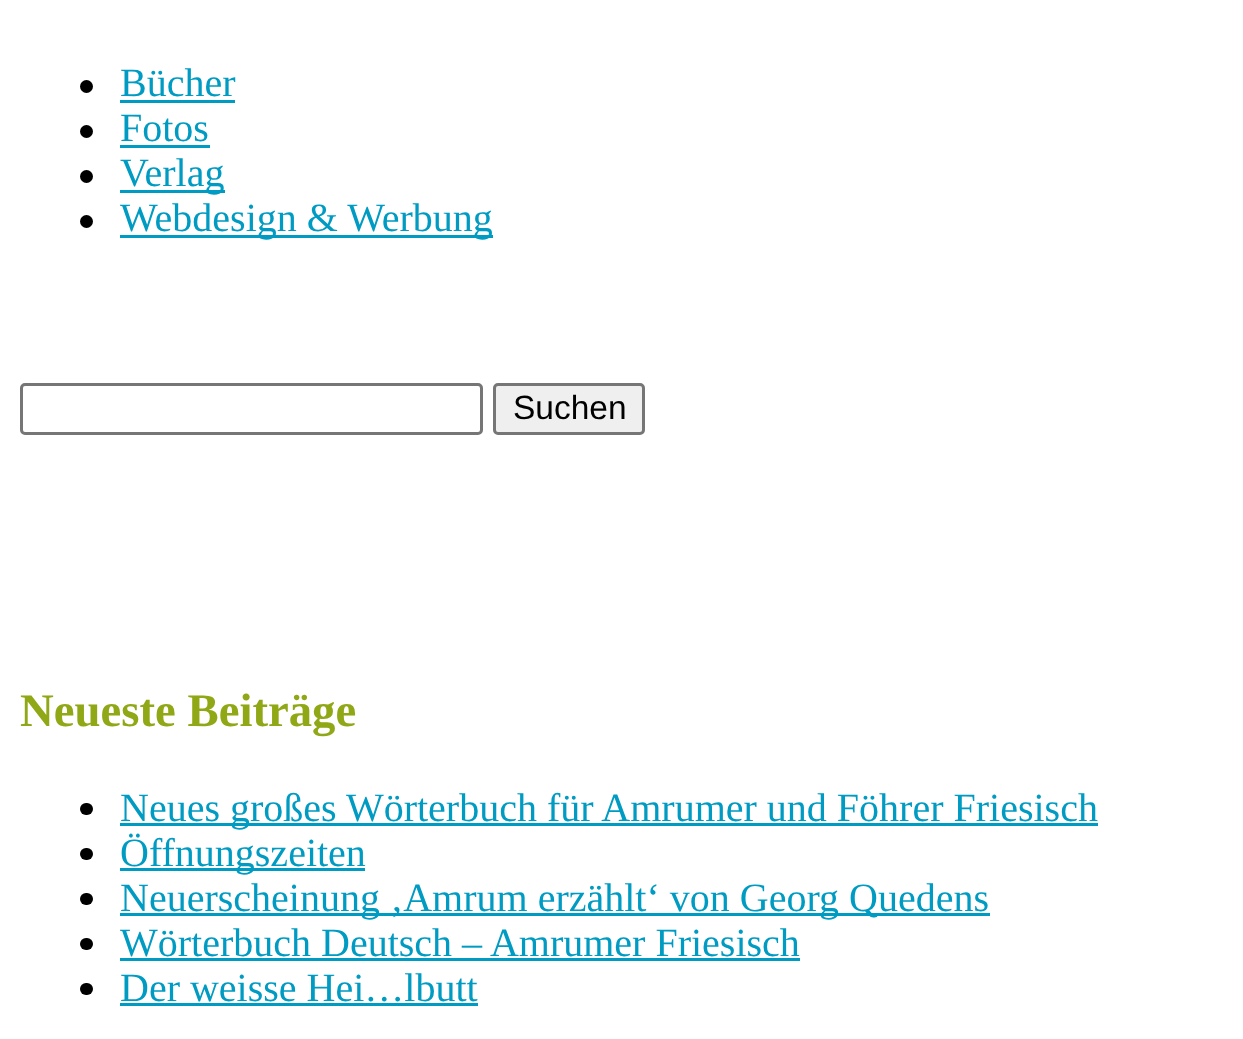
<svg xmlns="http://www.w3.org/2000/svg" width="1243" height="1039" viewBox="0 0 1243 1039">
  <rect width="100%" height="100%" fill="#ffffff"/>
  <circle cx="86.5" cy="86.5" r="6.5" fill="#000000"/>
  <text x="120" y="96" font-family="Liberation Serif" font-size="40" fill="#009bc2">Bücher</text>
  <rect x="120" y="100" width="115" height="3" fill="#009bc2"/>
  <circle cx="86.5" cy="131.5" r="6.5" fill="#000000"/>
  <text x="120" y="141" font-family="Liberation Serif" font-size="40" fill="#009bc2">Fotos</text>
  <rect x="120" y="145" width="90" height="3" fill="#009bc2"/>
  <circle cx="86.5" cy="176.5" r="6.5" fill="#000000"/>
  <rect x="120" y="190" width="105" height="3" fill="#009bc2"/>
  <text x="120" y="186" font-family="Liberation Serif" font-size="40" fill="#009bc2">Verlag</text>
  <circle cx="86.5" cy="221.5" r="6.5" fill="#000000"/>
  <rect x="120" y="235" width="373" height="3" fill="#009bc2"/>
  <text x="120" y="231" font-family="Liberation Serif" font-size="40" fill="#009bc2">Webdesign &amp; Werbung</text>
  <rect x="21.5" y="384.5" width="460" height="49" rx="3.5" fill="none" stroke="#767676" stroke-width="3"/>
  <rect x="494.5" y="384.5" width="149" height="49" rx="3.5" fill="#efefef" stroke="#767676" stroke-width="3"/>
  <text x="513" y="419" font-family="Liberation Sans" font-size="33.5" fill="#000000">Suchen</text>
  <text x="20" y="726" font-family="Liberation Serif" font-size="46.75" font-weight="bold" fill="#90a816">Neueste Beiträge</text>
  <rect x="80" y="803" width="13" height="12" rx="6" fill="#000000"/>
  <rect x="120" y="823" width="978" height="3" fill="#009bc2"/>
  <text x="120" y="821" font-family="Liberation Serif" font-size="40" fill="#009bc2">Neues großes Wörterbuch für Amrumer und Föhrer Friesisch</text>
  <rect x="80" y="848" width="13" height="12" rx="6" fill="#000000"/>
  <rect x="120" y="868" width="245" height="3" fill="#009bc2"/>
  <text x="120" y="866" font-family="Liberation Serif" font-size="40" fill="#009bc2">Öffnungszeiten</text>
  <rect x="80" y="893" width="13" height="12" rx="6" fill="#000000"/>
  <rect x="120" y="913" width="870" height="3" fill="#009bc2"/>
  <text x="120" y="911" font-family="Liberation Serif" font-size="40" fill="#009bc2">Neuerscheinung ‚Amrum erzählt‘ von Georg Quedens</text>
  <rect x="80" y="938" width="13" height="12" rx="6" fill="#000000"/>
  <text x="120" y="956" font-family="Liberation Serif" font-size="40" fill="#009bc2">Wörterbuch Deutsch – Amrumer Friesisch</text>
  <rect x="120" y="958" width="680" height="3" fill="#009bc2"/>
  <rect x="80" y="983" width="13" height="12" rx="6" fill="#000000"/>
  <text x="120" y="1001" font-family="Liberation Serif" font-size="40" fill="#009bc2">Der weisse Hei…lbutt</text>
  <rect x="120" y="1003" width="358" height="3" fill="#009bc2"/>
</svg>
